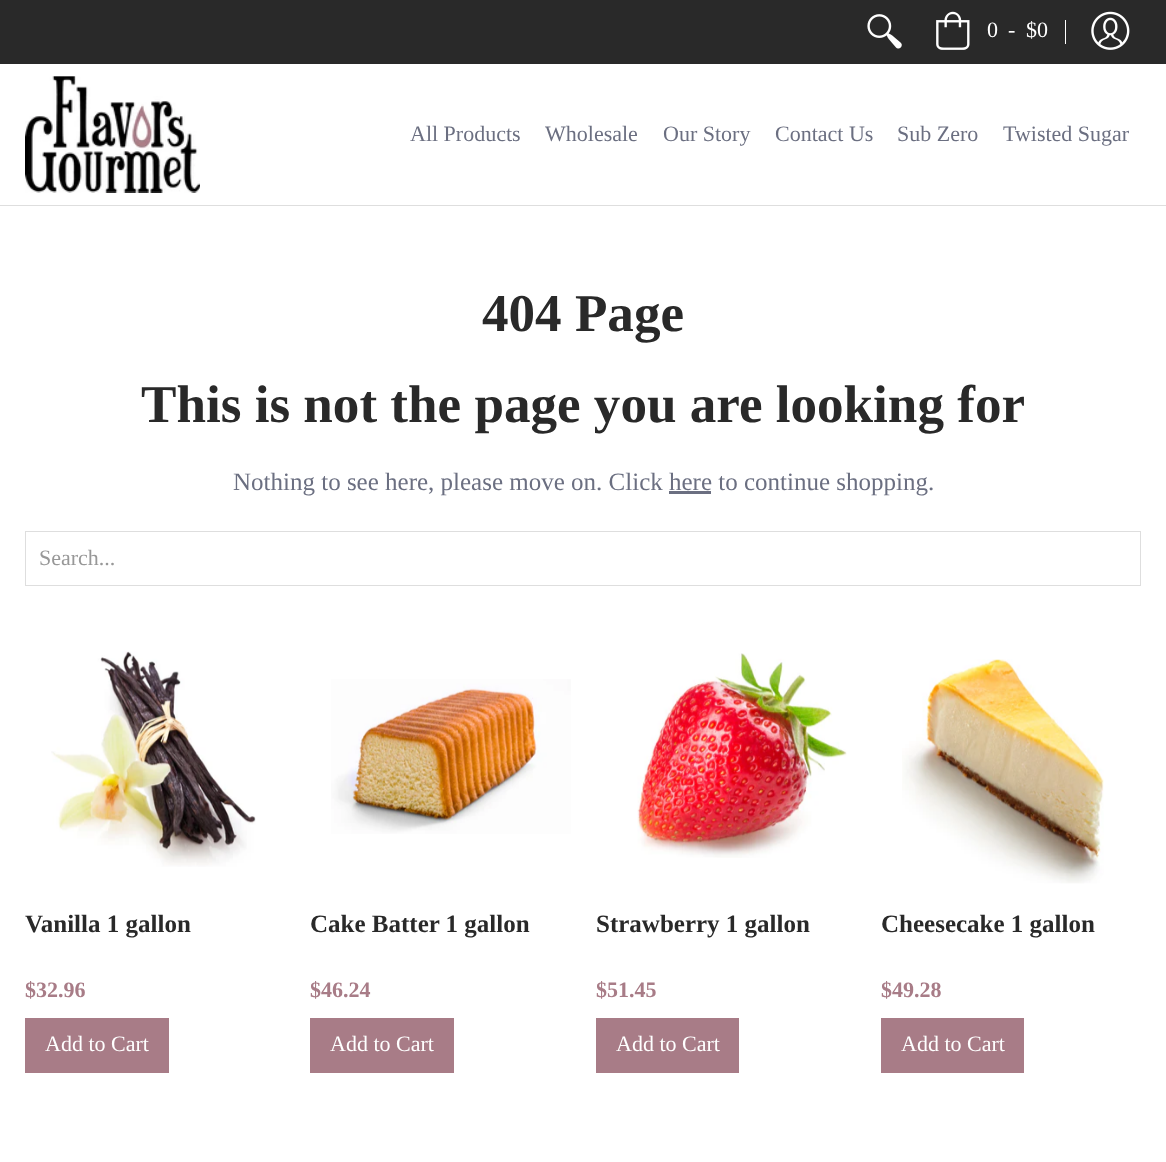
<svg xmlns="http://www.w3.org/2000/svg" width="1166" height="1162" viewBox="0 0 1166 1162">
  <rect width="100%" height="100%" fill="#ffffff"/>
  <rect x="0" y="0" width="1166" height="64" fill="#292929"/>
  <image x="867" y="14" width="35" height="35" href="img1.png"/>
  <image x="936" y="11" width="34" height="39" href="img2.png"/>
  <text x="987" y="37" font-family="Liberation Serif" font-size="22" fill="#ffffff">0</text>
  <text x="1008" y="37" font-family="Liberation Serif" font-size="22" fill="#ffffff">-</text>
  <text x="1026" y="37" font-family="Liberation Serif" font-size="22" fill="#ffffff">$0</text>
  <rect x="1065" y="20" width="1" height="24" fill="#ffffff"/>
  <image x="1091" y="11" width="39" height="39" href="img3.png"/>
  <rect x="0" y="205" width="1166" height="1" fill="#dedede"/>
  <image x="25" y="76" width="175" height="117" href="img4.png"/>
  <text x="410" y="141" font-family="Liberation Serif" font-size="22" fill="#6b6f81">All Products</text>
  <text x="545" y="141" font-family="Liberation Serif" font-size="22" fill="#6b6f81">Wholesale</text>
  <text x="663" y="141" font-family="Liberation Serif" font-size="22" fill="#6b6f81">Our Story</text>
  <text x="775" y="141" font-family="Liberation Serif" font-size="22" fill="#6b6f81">Contact Us</text>
  <text x="897" y="141" font-family="Liberation Serif" font-size="22" fill="#6b6f81">Sub Zero</text>
  <text x="1003" y="141" font-family="Liberation Serif" font-size="22" fill="#6b6f81">Twisted Sugar</text>
  <text x="482" y="331" font-family="Liberation Serif" font-size="53.1" font-weight="bold" fill="#292929">404 Page</text>
  <text x="141" y="422" font-family="Liberation Serif" font-size="53.1" font-weight="bold" fill="#292929">This is not the page you are looking for</text>
  <text x="233" y="490" font-family="Liberation Serif" font-size="25" fill="#6b6f81">Nothing to see here, please move on. Click here to continue shopping.</text>
  <rect x="669" y="491" width="42" height="3" fill="#6b6f81"/>
  <rect x="25.5" y="531.5" width="1115" height="54" fill="none" stroke="#dedede"/>
  <text x="39" y="565" font-family="Liberation Serif" font-size="22" fill="#989898">Search...</text>
  <image x="51" y="651" width="205" height="216" href="img5.png"/>
  <text x="25" y="932" font-family="Liberation Serif" font-size="25" font-weight="bold" fill="#292929">Vanilla 1 gallon</text>
  <text x="25" y="997" font-family="Liberation Serif" font-size="22" font-weight="bold" fill="#a87c87">$32.96</text>
  <rect x="25" y="1018" width="144" height="55" fill="#a87c87"/>
  <text x="45" y="1051" font-family="Liberation Serif" font-size="22" fill="#ffffff">Add to Cart</text>
  <image x="331" y="679" width="240" height="155" href="img6.png"/>
  <text x="310" y="932" font-family="Liberation Serif" font-size="25" font-weight="bold" fill="#292929">Cake Batter 1 gallon</text>
  <text x="310" y="997" font-family="Liberation Serif" font-size="22" font-weight="bold" fill="#a87c87">$46.24</text>
  <rect x="310" y="1018" width="144" height="55" fill="#a87c87"/>
  <text x="330" y="1051" font-family="Liberation Serif" font-size="22" fill="#ffffff">Add to Cart</text>
  <image x="637" y="653" width="210" height="205" href="img7.png"/>
  <text x="596" y="932" font-family="Liberation Serif" font-size="25" font-weight="bold" fill="#292929">Strawberry 1 gallon</text>
  <text x="596" y="997" font-family="Liberation Serif" font-size="22" font-weight="bold" fill="#a87c87">$51.45</text>
  <rect x="596" y="1018" width="143" height="55" fill="#a87c87"/>
  <text x="616" y="1051" font-family="Liberation Serif" font-size="22" fill="#ffffff">Add to Cart</text>
  <image x="902" y="659" width="202" height="225" href="img8.png"/>
  <text x="881" y="932" font-family="Liberation Serif" font-size="25" font-weight="bold" fill="#292929">Cheesecake 1 gallon</text>
  <text x="881" y="997" font-family="Liberation Serif" font-size="22" font-weight="bold" fill="#a87c87">$49.28</text>
  <rect x="881" y="1018" width="143" height="55" fill="#a87c87"/>
  <text x="901" y="1051" font-family="Liberation Serif" font-size="22" fill="#ffffff">Add to Cart</text>
</svg>
